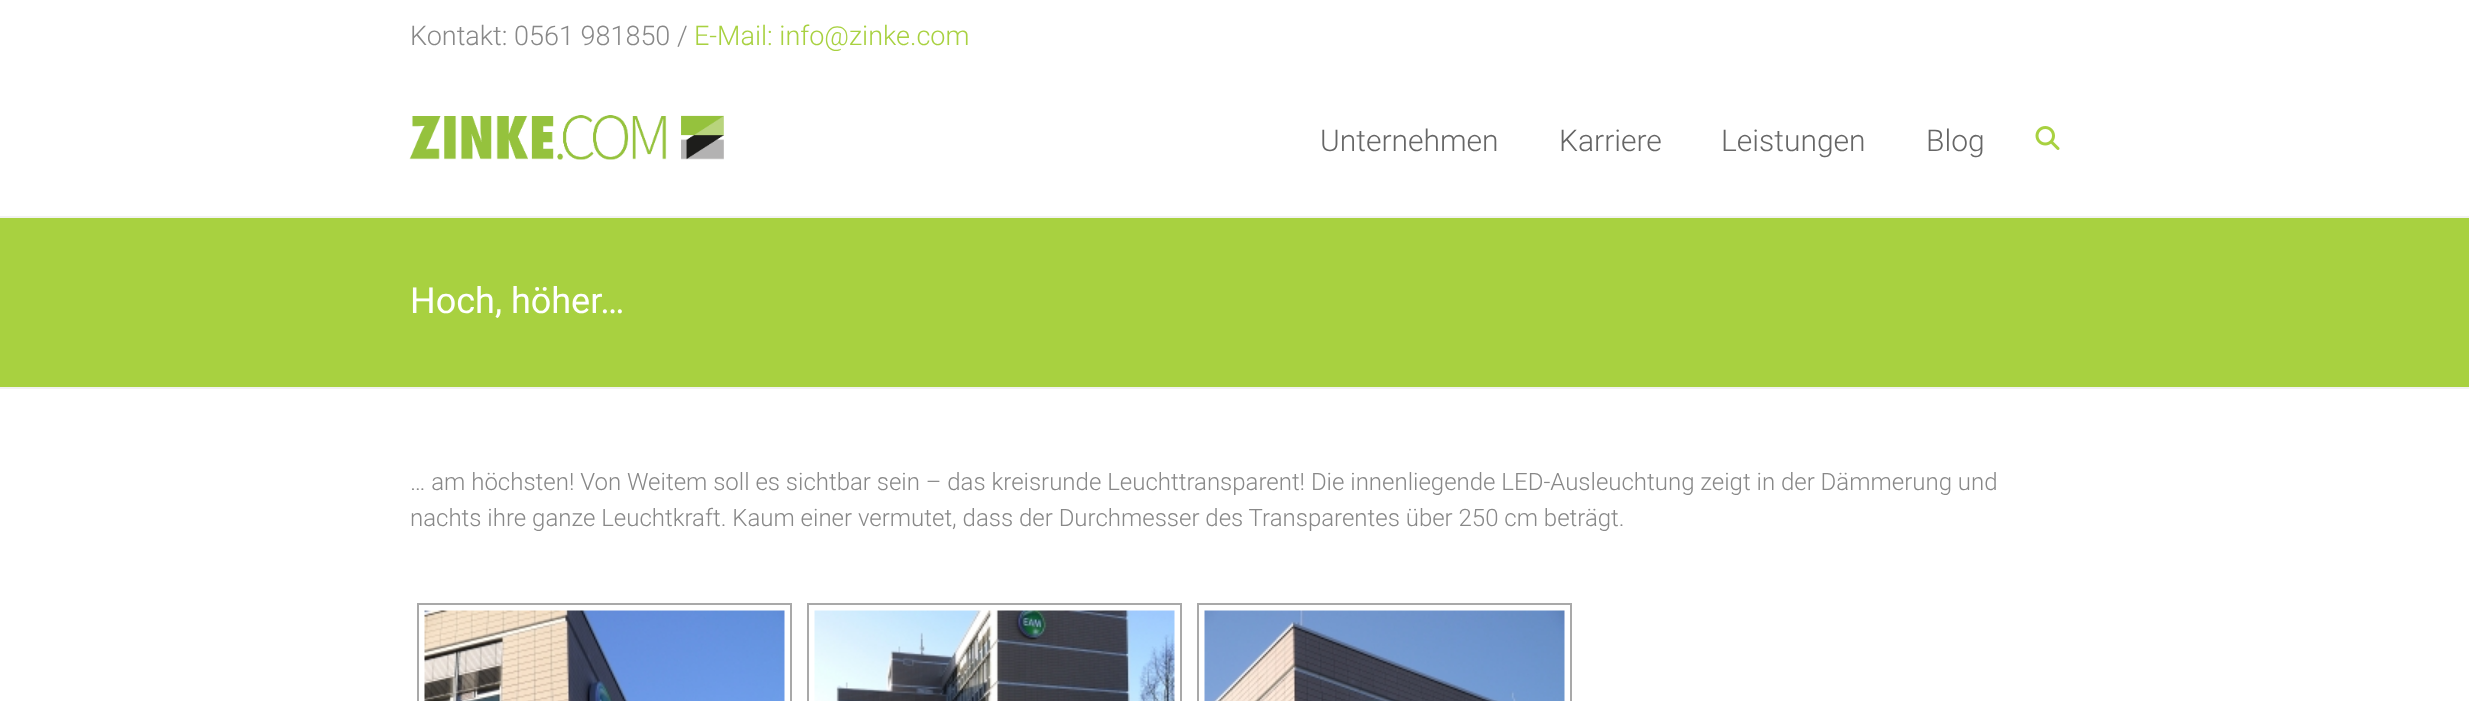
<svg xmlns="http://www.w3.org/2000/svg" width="2469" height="701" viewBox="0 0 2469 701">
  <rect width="100%" height="100%" fill="#ffffff"/>
  <rect x="0" y="216" width="2469" height="2" fill="#f2f2f2"/>
  <text x="410" y="45" font-family="Roboto" font-size="27" font-weight="300" fill="#888888">Kontakt: 0561 981850 /</text>
  <text x="694" y="45" font-family="Roboto" font-size="27" font-weight="300" fill="#a8d140">E-Mail: info@zinke.com</text>
  <image x="409" y="115" width="315" height="45" href="img1.png"/>
  <text x="1320" y="151" font-family="Roboto" font-size="30" font-weight="300" fill="#666666">Unternehmen</text>
  <text x="1559" y="151" font-family="Roboto" font-size="30" font-weight="300" fill="#666666">Karriere</text>
  <text x="1721" y="151" font-family="Roboto" font-size="30" font-weight="300" fill="#666666">Leistungen</text>
  <text x="1926" y="151" font-family="Roboto" font-size="30" font-weight="300" fill="#666666">Blog</text>
  <image x="2035" y="126" width="25" height="24" href="img2.png"/>
  <rect x="0" y="218" width="2469" height="169" fill="#a8d140"/>
  <rect x="0" y="387" width="2469" height="2" fill="#f2f2f2"/>
  <text x="410" y="313" font-family="Roboto" font-size="36" fill="#ffffff">Hoch, höher…</text>
  <text x="410" y="490" font-family="Roboto" font-size="24" font-weight="300" fill="#888888">… am höchsten! Von Weitem soll es sichtbar sein – das kreisrunde Leuchttransparent! Die innenliegende LED-Ausleuchtung zeigt in der Dämmerung und</text>
  <text x="410" y="526" font-family="Roboto" font-size="24" font-weight="300" fill="#888888">nachts ihre ganze Leuchtkraft. Kaum einer vermutet, dass der Durchmesser des Transparentes über 250 cm beträgt.</text>
  <rect x="418" y="604" width="373" height="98" fill="none" stroke="#a9a9a9" stroke-width="2"/>
  <image x="424" y="610" width="361" height="91" href="img3.png"/>
  <rect x="808" y="604" width="373" height="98" fill="none" stroke="#a9a9a9" stroke-width="2"/>
  <image x="814" y="610" width="361" height="91" href="img4.png"/>
  <rect x="1198" y="604" width="373" height="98" fill="none" stroke="#a9a9a9" stroke-width="2"/>
  <image x="1204" y="610" width="361" height="91" href="img5.png"/>
</svg>
